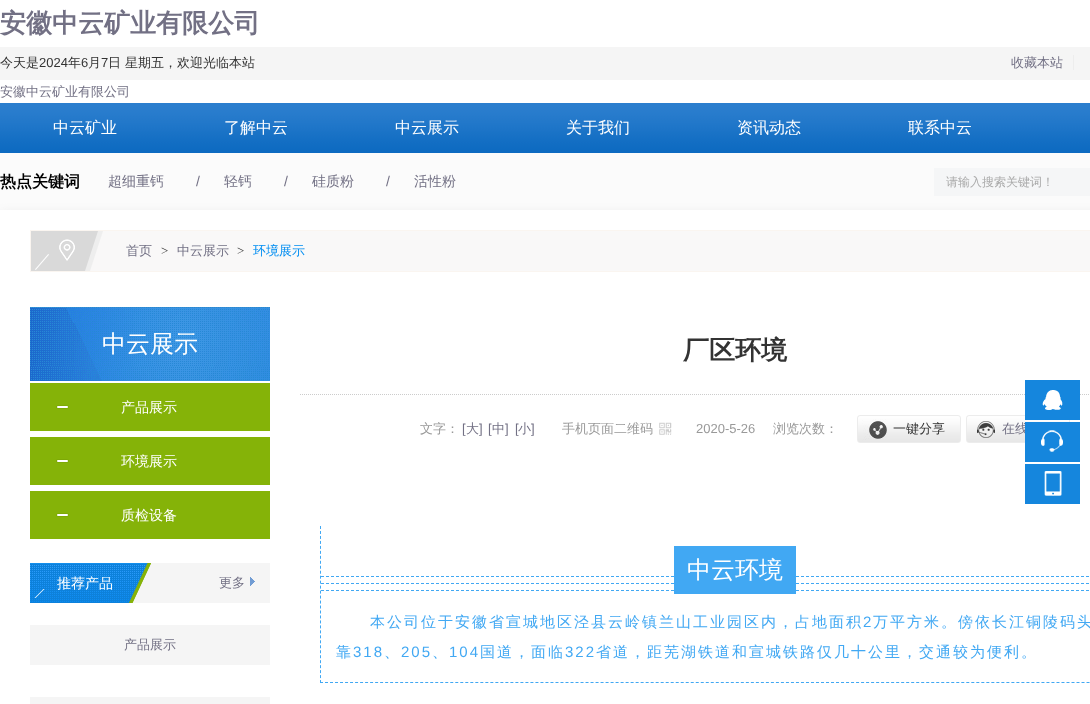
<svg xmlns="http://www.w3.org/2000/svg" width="1090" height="704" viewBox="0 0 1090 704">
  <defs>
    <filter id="blur1" x="-50%" y="-200%" width="200%" height="500%"><feGaussianBlur stdDeviation="5"/></filter>
  </defs>
  <rect width="100%" height="100%" fill="#ffffff"/>
  <text x="0" y="32" font-family="WenQuanYi Zen Hei" font-size="26" font-weight="bold" fill="#727084">安徽中云矿业有限公司</text>
  <rect x="0" y="47" width="1090" height="33" fill="#f5f5f5"/>
  <text x="0" y="67" font-family="WenQuanYi Zen Hei" font-size="13" font-weight="500" fill="#333333">今天是</text>
  <text x="39" y="67" font-family="Liberation Sans" font-size="13" fill="#333333">2024</text>
  <text x="68" y="67" font-family="WenQuanYi Zen Hei" font-size="13" font-weight="500" fill="#333333">年</text>
  <text x="81" y="67" font-family="Liberation Sans" font-size="13" fill="#333333">6</text>
  <text x="88" y="67" font-family="WenQuanYi Zen Hei" font-size="13" font-weight="500" fill="#333333">月</text>
  <text x="101" y="67" font-family="Liberation Sans" font-size="13" fill="#333333">7</text>
  <text x="108" y="67" font-family="WenQuanYi Zen Hei" font-size="13" font-weight="500" fill="#333333">日 星期五，欢迎光临本站</text>
  <text x="1011" y="67" font-family="WenQuanYi Zen Hei" font-size="13" font-weight="500" fill="#727084">收藏本站</text>
  <rect x="1073" y="55" width="1" height="15" fill="#ededed"/>
  <text x="0" y="96" font-family="WenQuanYi Zen Hei" font-size="13" font-weight="500" fill="#727084">安徽中云矿业有限公司</text>
  <image x="0" y="103" width="1090" height="50" href="img1.png"/>
  <text x="53" y="133" font-family="WenQuanYi Zen Hei" font-size="16" font-weight="500" fill="#ffffff">中云矿业</text>
  <text x="224" y="133" font-family="WenQuanYi Zen Hei" font-size="16" font-weight="500" fill="#ffffff">了解中云</text>
  <text x="395" y="133" font-family="WenQuanYi Zen Hei" font-size="16" font-weight="500" fill="#ffffff">中云展示</text>
  <text x="566" y="133" font-family="WenQuanYi Zen Hei" font-size="16" font-weight="500" fill="#ffffff">关于我们</text>
  <text x="737" y="133" font-family="WenQuanYi Zen Hei" font-size="16" font-weight="500" fill="#ffffff">资讯动态</text>
  <text x="908" y="133" font-family="WenQuanYi Zen Hei" font-size="16" font-weight="500" fill="#ffffff">联系中云</text>
  <rect x="0" y="153" width="1090" height="57" fill="#fbfbfb"/>
  <text x="0" y="187" font-family="WenQuanYi Zen Hei" font-size="16" font-weight="bold" fill="#000000">热点关键词</text>
  <text x="108" y="186" font-family="WenQuanYi Zen Hei" font-size="14" font-weight="500" fill="#727084">超细重钙</text>
  <text x="196" y="186" font-family="Liberation Sans" font-size="14" fill="#727084">/</text>
  <text x="224" y="186" font-family="WenQuanYi Zen Hei" font-size="14" font-weight="500" fill="#727084">轻钙</text>
  <text x="284" y="186" font-family="Liberation Sans" font-size="14" fill="#727084">/</text>
  <text x="312" y="186" font-family="WenQuanYi Zen Hei" font-size="14" font-weight="500" fill="#727084">硅质粉</text>
  <text x="386" y="186" font-family="Liberation Sans" font-size="14" fill="#727084">/</text>
  <text x="414" y="186" font-family="WenQuanYi Zen Hei" font-size="14" font-weight="500" fill="#727084">活性粉</text>
  <rect x="0" y="211" width="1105" height="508" fill="#eeeeee" filter="url(#blur1)"/>
  <rect x="934" y="168" width="156" height="28" fill="#f5f6f7"/>
  <text x="946" y="186" font-family="WenQuanYi Zen Hei" font-size="12" font-weight="500" fill="#aaaaaa">请输入搜索关键词！</text>
  <rect x="0" y="210" width="1090" height="494" fill="#ffffff"/>
  <rect x="90" y="231" width="1000" height="40" fill="#f9f8f8"/>
  <rect x="30.5" y="230.5" width="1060" height="41" fill="none" stroke="#faf5f0"/>
  <image x="31" y="231" width="72" height="40" href="img2.png"/>
  <text x="126" y="255" font-family="WenQuanYi Zen Hei" font-size="13" font-weight="500" fill="#727084">首页</text>
  <text x="161" y="255" font-family="Liberation Serif" font-size="13" fill="#333333">&gt;</text>
  <text x="177" y="255" font-family="WenQuanYi Zen Hei" font-size="13" font-weight="500" fill="#727084">中云展示</text>
  <text x="237" y="255" font-family="Liberation Serif" font-size="13" fill="#333333">&gt;</text>
  <text x="253" y="255" font-family="WenQuanYi Zen Hei" font-size="13" font-weight="500" fill="#008df1">环境展示</text>
  <image x="30" y="307" width="240" height="74" href="img3.png"/>
  <text x="102" y="352" font-family="WenQuanYi Zen Hei" font-size="24" font-weight="500" fill="#ffffff">中云展示</text>
  <rect x="30" y="383" width="240" height="48" fill="#85b308"/>
  <image x="56" y="405" width="13" height="4" href="img4.png"/>
  <text x="121" y="412" font-family="WenQuanYi Zen Hei" font-size="14" font-weight="500" fill="#ffffff">产品展示</text>
  <rect x="30" y="437" width="240" height="48" fill="#85b308"/>
  <image x="56" y="459" width="13" height="4" href="img4.png"/>
  <text x="121" y="466" font-family="WenQuanYi Zen Hei" font-size="14" font-weight="500" fill="#ffffff">环境展示</text>
  <rect x="30" y="491" width="240" height="48" fill="#85b308"/>
  <image x="56" y="513" width="13" height="4" href="img4.png"/>
  <text x="121" y="520" font-family="WenQuanYi Zen Hei" font-size="14" font-weight="500" fill="#ffffff">质检设备</text>
  <rect x="132" y="563" width="138" height="40" fill="#f5f5f5"/>
  <image x="30" y="563" width="121" height="40" href="img5.png"/>
  <text x="57" y="588" font-family="WenQuanYi Zen Hei" font-size="14" font-weight="500" fill="#ffffff">推荐产品</text>
  <path d="M43.5 589H44.5L35.5 598H34.5Z" fill="#ffffff"/>
  <image x="250" y="577" width="5" height="9" href="img6.png"/>
  <text x="219" y="587" font-family="WenQuanYi Zen Hei" font-size="13" font-weight="500" fill="#727084">更多</text>
  <rect x="30" y="625" width="240" height="40" fill="#f5f5f5"/>
  <text x="124" y="649" font-family="WenQuanYi Zen Hei" font-size="13" font-weight="500" fill="#727084">产品展示</text>
  <rect x="30" y="697" width="240" height="7" fill="#f5f5f5"/>
  <path d="M300 394.5H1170" fill="none" stroke="#cccccc" stroke-dasharray="1 1"/>
  <text x="683" y="359" font-family="WenQuanYi Zen Hei" font-size="26" font-weight="bold" fill="#333333">厂区环境</text>
  <text x="420" y="433" font-family="WenQuanYi Zen Hei" font-size="13" font-weight="500" fill="#999999">文字：</text>
  <text x="462" y="433" font-family="Liberation Sans" font-size="13" fill="#727084">[</text>
  <text x="466" y="433" font-family="WenQuanYi Zen Hei" font-size="13" font-weight="500" fill="#727084">大</text>
  <text x="479" y="433" font-family="Liberation Sans" font-size="13" fill="#727084">]</text>
  <text x="488" y="433" font-family="Liberation Sans" font-size="13" fill="#727084">[</text>
  <text x="492" y="433" font-family="WenQuanYi Zen Hei" font-size="13" font-weight="500" fill="#727084">中</text>
  <text x="505" y="433" font-family="Liberation Sans" font-size="13" fill="#727084">]</text>
  <text x="515" y="433" font-family="Liberation Sans" font-size="13" fill="#727084">[</text>
  <text x="518" y="433" font-family="WenQuanYi Zen Hei" font-size="13" font-weight="500" fill="#727084">小</text>
  <text x="531" y="433" font-family="Liberation Sans" font-size="13" fill="#727084">]</text>
  <image x="659" y="422" width="13" height="13" href="img7.png"/>
  <text x="562" y="433" font-family="WenQuanYi Zen Hei" font-size="13" font-weight="500" fill="#999999">手机页面二维码</text>
  <text x="696" y="433" font-family="Liberation Sans" font-size="13" fill="#999999">2020-5-26</text>
  <text x="773" y="433" font-family="WenQuanYi Zen Hei" font-size="13" font-weight="500" fill="#999999">浏览次数：</text>
  <image x="858" y="416" width="102" height="26" href="img8.png"/>
  <rect x="857.5" y="415.5" width="103" height="27" rx="2.5" fill="none" stroke="#ececec"/>
  <text x="893" y="433" font-family="WenQuanYi Zen Hei" font-size="13" font-weight="500" fill="#333333">一键分享</text>
  <image x="967" y="416" width="102" height="26" href="img9.png"/>
  <rect x="966.5" y="415.5" width="103" height="27" rx="2.5" fill="none" stroke="#ececec"/>
  <text x="1002" y="433" font-family="WenQuanYi Zen Hei" font-size="13" font-weight="500" fill="#727084">在线</text>
  <path d="M320 682.5H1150" fill="none" stroke="#41a8f3" stroke-dasharray="3 2.01"/>
  <path d="M320.5 526V683" fill="none" stroke="#41a8f3" stroke-dasharray="3 1.97"/>
  <path d="M321 576.5H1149" fill="none" stroke="#41a8f3" stroke-dasharray="3 2"/>
  <path d="M321 583.5H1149" fill="none" stroke="#41a8f3" stroke-dasharray="3 2"/>
  <path d="M321 590.5H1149" fill="none" stroke="#41a8f3" stroke-dasharray="3 2"/>
  <rect x="674" y="546" width="122" height="48" fill="#41a8f3"/>
  <text x="687" y="578" font-family="WenQuanYi Zen Hei" font-size="24" font-weight="500" fill="#ffffff">中云环境</text>
  <text x="370" y="627" font-family="WenQuanYi Zen Hei" font-size="15" font-weight="500" letter-spacing="2" fill="#41a8f3">本公司位于安徽省宣城地区泾县云岭镇兰山工业园区内，占地面积</text>
  <text x="863" y="627" font-family="Liberation Sans" font-size="15" letter-spacing="2" fill="#41a8f3">2</text>
  <text x="873" y="627" font-family="WenQuanYi Zen Hei" font-size="15" font-weight="500" letter-spacing="2" fill="#41a8f3">万平方米。傍依长江铜陵码头</text>
  <text x="336" y="657" font-family="WenQuanYi Zen Hei" font-size="15" font-weight="500" letter-spacing="2" fill="#41a8f3">靠</text>
  <text x="353" y="657" font-family="Liberation Sans" font-size="15" letter-spacing="2" fill="#41a8f3">318</text>
  <text x="384" y="657" font-family="WenQuanYi Zen Hei" font-size="15" font-weight="500" letter-spacing="2" fill="#41a8f3">、</text>
  <text x="401" y="657" font-family="Liberation Sans" font-size="15" letter-spacing="2" fill="#41a8f3">205</text>
  <text x="432" y="657" font-family="WenQuanYi Zen Hei" font-size="15" font-weight="500" letter-spacing="2" fill="#41a8f3">、</text>
  <text x="449" y="657" font-family="Liberation Sans" font-size="15" letter-spacing="2" fill="#41a8f3">104</text>
  <text x="480" y="657" font-family="WenQuanYi Zen Hei" font-size="15" font-weight="500" letter-spacing="2" fill="#41a8f3">国道，面临</text>
  <text x="565" y="657" font-family="Liberation Sans" font-size="15" letter-spacing="2" fill="#41a8f3">322</text>
  <text x="596" y="657" font-family="WenQuanYi Zen Hei" font-size="15" font-weight="500" letter-spacing="2" fill="#41a8f3">省道，距芜湖铁道和宣城铁路仅几十公里，交通较为便利。</text>
  <rect x="1025" y="380" width="55" height="40" fill="#1586dd"/>
  <image x="1042" y="390" width="21" height="20" href="img10.png"/>
  <rect x="1025" y="422" width="55" height="40" fill="#1586dd"/>
  <image x="1041" y="430" width="22" height="22" href="img11.png"/>
  <rect x="1025" y="464" width="55" height="40" fill="#1586dd"/>
  <image x="1044" y="471" width="18" height="25" href="img12.png"/>
</svg>
